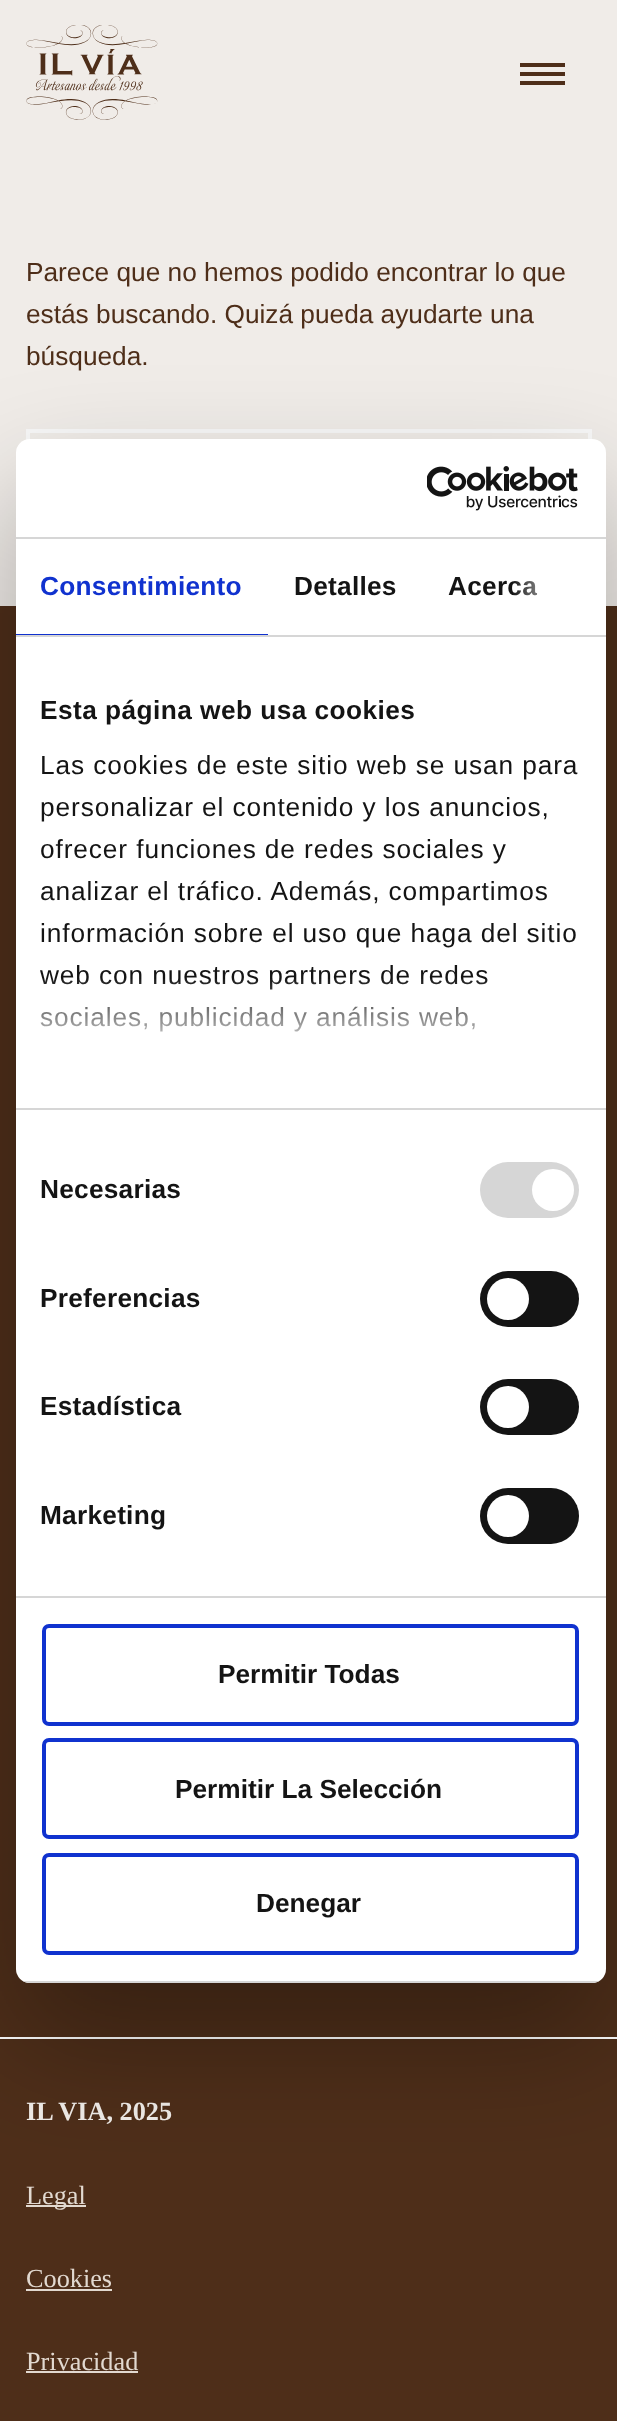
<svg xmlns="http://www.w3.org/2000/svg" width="617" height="2421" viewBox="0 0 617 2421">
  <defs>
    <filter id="blur1" x="-50%" y="-200%" width="200%" height="500%"><feGaussianBlur stdDeviation="59.5"/></filter>
    <linearGradient id="g1" gradientUnits="userSpaceOnUse" x1="605" y1="588" x2="512" y2="588"><stop offset="0" stop-color="#ffffff"/><stop offset="0.5" stop-color="#ffffff" stop-opacity="0.8"/><stop offset="1" stop-color="#ffffff" stop-opacity="0"/></linearGradient>
    <linearGradient id="g2" gradientUnits="userSpaceOnUse" x1="298" y1="1108" x2="298" y2="977"><stop offset="0" stop-color="#ffffff"/><stop offset="0.5" stop-color="#ffffff" stop-opacity="0.8"/><stop offset="1" stop-color="#ffffff" stop-opacity="0"/></linearGradient>
    <clipPath id="clip1"><rect x="16" y="439" width="590" height="1544" rx="14"/></clipPath>
  </defs>
  <rect width="100%" height="100%" fill="#f0ece8"/>
  <image x="26" y="25" width="132" height="95" href="img1.png"/>
  <rect x="520" y="63" width="45" height="4" fill="#4e2e19"/>
  <rect x="520" y="72" width="45" height="4" fill="#4e2e19"/>
  <rect x="520" y="81" width="45" height="4" fill="#4e2e19"/>
  <text x="26" y="281" font-family="Liberation Sans" font-size="26.25" fill="#4e2e19">Parece que no hemos podido encontrar lo que</text>
  <text x="26" y="323" font-family="Liberation Sans" font-size="26.25" fill="#4e2e19">estás buscando. Quizá pueda ayudarte una</text>
  <text x="26" y="365" font-family="Liberation Sans" font-size="26.25" fill="#4e2e19">búsqueda.</text>
  <rect x="26" y="429" width="566" height="4" fill="#f8f8f8"/>
  <rect x="26" y="429" width="4" height="11" fill="#f8f8f8"/>
  <rect x="588" y="429" width="4" height="10" fill="#f8f8f8"/>
  <rect x="0" y="606" width="617" height="1431" fill="#4e2e19"/>
  <rect x="0" y="2037" width="617" height="2" fill="#ffffff"/>
  <rect x="0" y="2039" width="617" height="382" fill="#4e2e19"/>
  <text x="26" y="2120" font-family="Liberation Serif" font-size="26.25" font-weight="bold" fill="#f0ece8">IL VIA, 2025</text>
  <rect x="26" y="2205" width="60" height="2" fill="#e2d9d0"/>
  <text x="26" y="2204" font-family="Liberation Serif" font-size="26.25" fill="#e2d9d0">Legal</text>
  <text x="26" y="2287" font-family="Liberation Serif" font-size="26.25" fill="#e2d9d0">Cookies</text>
  <rect x="26" y="2289" width="86" height="2" fill="#e2d9d0"/>
  <text x="26" y="2370" font-family="Liberation Serif" font-size="26.25" fill="#e2d9d0">Privacidad</text>
  <rect x="26" y="2371" width="112" height="2" fill="#e2d9d0"/>
  <rect x="16" y="495" width="590" height="1544" rx="14" fill="#000000" fill-opacity="0.3" filter="url(#blur1)"/>
  <rect x="16" y="439" width="590" height="1544" rx="14" fill="#ffffff"/>
  <rect x="16" y="537" width="590" height="2" fill="#d6d6d6"/>
  <image x="427" y="466" width="151" height="45" href="img2.png"/>
  <rect x="16" y="635" width="590" height="2" fill="#d6d6d6"/>
  <rect x="16" y="634" width="252" height="1" fill="#1032cf"/>
  <text x="40" y="595" font-family="Liberation Sans" font-size="26.25" font-weight="bold" letter-spacing="0.25" fill="#1032cf">Consentimiento</text>
  <text x="294" y="595" font-family="Liberation Sans" font-size="26.25" font-weight="bold" letter-spacing="0.25" fill="#141414">Detalles</text>
  <text x="448" y="595" font-family="Liberation Sans" font-size="26.25" font-weight="bold" letter-spacing="0.25" fill="#141414">Acerca</text>
  <rect x="513" y="580" width="24" height="16" fill="url(#g1)"/>
  <rect x="16" y="1108" width="590" height="2" fill="#d6d6d6"/>
  <text x="40" y="719" font-family="Liberation Sans" font-size="26.25" font-weight="bold" letter-spacing="0.45" fill="#141414">Esta página web usa cookies</text>
  <text x="40" y="774" font-family="Liberation Sans" font-size="26.25" letter-spacing="0.9" fill="#141414">Las cookies de este sitio web se usan para</text>
  <text x="40" y="816" font-family="Liberation Sans" font-size="26.25" letter-spacing="0.9" fill="#141414">personalizar el contenido y los anuncios,</text>
  <text x="40" y="858" font-family="Liberation Sans" font-size="26.25" letter-spacing="0.9" fill="#141414">ofrecer funciones de redes sociales y</text>
  <text x="40" y="900" font-family="Liberation Sans" font-size="26.25" letter-spacing="0.9" fill="#141414">analizar el tráfico. Además, compartimos</text>
  <text x="40" y="942" font-family="Liberation Sans" font-size="26.25" letter-spacing="0.9" fill="#141414">información sobre el uso que haga del sitio</text>
  <text x="40" y="984" font-family="Liberation Sans" font-size="26.25" letter-spacing="0.9" fill="#141414">web con nuestros partners de redes</text>
  <text x="40" y="1026" font-family="Liberation Sans" font-size="26.25" letter-spacing="0.9" fill="#141414">sociales, publicidad y análisis web,</text>
  <rect x="41" y="979" width="446" height="53" fill="url(#g2)"/>
  <rect x="16" y="1596" width="590" height="2" fill="#d6d6d6"/>
  <text x="40" y="1198" font-family="Liberation Sans" font-size="26.25" font-weight="bold" letter-spacing="0.25" fill="#141414">Necesarias</text>
  <rect x="480" y="1162" width="99" height="56" rx="28" fill="#d6d6d6"/>
  <circle cx="553" cy="1190" r="21" fill="#ffffff"/>
  <text x="40" y="1307" font-family="Liberation Sans" font-size="26.25" font-weight="bold" letter-spacing="0.25" fill="#141414">Preferencias</text>
  <rect x="480" y="1271" width="99" height="56" rx="28" fill="#141414"/>
  <circle cx="508" cy="1299" r="21" fill="#ffffff"/>
  <text x="40" y="1415" font-family="Liberation Sans" font-size="26.25" font-weight="bold" letter-spacing="0.25" fill="#141414">Estadística</text>
  <rect x="480" y="1379" width="99" height="56" rx="28" fill="#141414"/>
  <circle cx="508" cy="1407" r="21" fill="#ffffff"/>
  <text x="40" y="1524" font-family="Liberation Sans" font-size="26.25" font-weight="bold" letter-spacing="0.25" fill="#141414">Marketing</text>
  <rect x="480" y="1488" width="99" height="56" rx="28" fill="#141414"/>
  <circle cx="508" cy="1516" r="21" fill="#ffffff"/>
  <g clip-path="url(#clip1)">
    <rect x="16" y="1981" width="590" height="2" fill="#d6d6d6"/>
  </g>
  <rect x="44" y="1626" width="533" height="98" rx="5" fill="none" stroke="#1032cf" stroke-width="4"/>
  <text x="218" y="1683" font-family="Liberation Sans" font-size="26.25" font-weight="bold" fill="#141414">Permitir Todas</text>
  <rect x="44" y="1740" width="533" height="97" rx="5" fill="none" stroke="#1032cf" stroke-width="4"/>
  <text x="175" y="1798" font-family="Liberation Sans" font-size="26.25" font-weight="bold" fill="#141414">Permitir La Selección</text>
  <rect x="44" y="1855" width="533" height="98" rx="5" fill="none" stroke="#1032cf" stroke-width="4"/>
  <text x="256" y="1912" font-family="Liberation Sans" font-size="26.25" font-weight="bold" fill="#141414">Denegar</text>
</svg>
